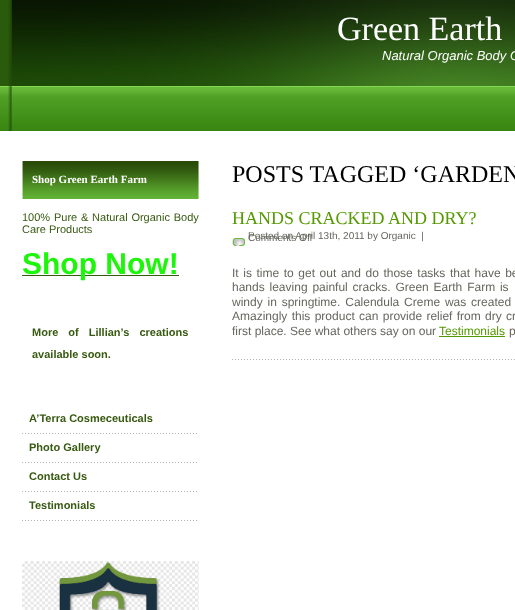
<svg xmlns="http://www.w3.org/2000/svg" width="515" height="610" viewBox="0 0 515 610">
  <rect width="100%" height="100%" fill="#ffffff"/>
  <image x="0" y="0" width="515" height="131" href="img1.png"/>
  <image x="8" y="0" width="507" height="86" href="img2.png"/>
  <text x="337" y="40" font-family="Liberation Serif" font-size="34" fill="#ffffff">Green Earth</text>
  <text x="382" y="60" font-family="Liberation Sans" font-size="13" font-style="italic" fill="#ffffff">Natural Organic Body C</text>
  <image x="8" y="86" width="4" height="45" href="img3.png"/>
  <image x="22" y="161" width="177" height="38" href="img4.png"/>
  <text x="32" y="183" font-family="Liberation Serif" font-size="11" font-weight="bold" fill="#ffffff">Shop Green Earth Farm</text>
  <text x="22" y="221" word-spacing="0.75" font-family="Liberation Sans" font-size="11" fill="#375910">100% Pure &amp; Natural Organic Body</text>
  <text x="22" y="233" font-family="Liberation Sans" font-size="11" fill="#375910">Care Products</text>
  <rect x="22" y="275" width="157" height="1" fill="#375910"/>
  <text x="22" y="274" font-family="Liberation Sans" font-size="30" font-weight="bold" fill="#1df50a">Shop Now!</text>
  <text x="32" y="336" word-spacing="7" font-family="Liberation Sans" font-size="11" font-weight="bold" fill="#375910">More of Lillian’s creations</text>
  <text x="32" y="358" font-family="Liberation Sans" font-size="11" font-weight="bold" fill="#375910">available soon.</text>
  <image x="22" y="433" width="175" height="1" href="img5.png"/>
  <text x="29" y="422" font-family="Liberation Sans" font-size="11" font-weight="bold" fill="#375910">A’Terra Cosmeceuticals</text>
  <image x="22" y="462" width="175" height="1" href="img5.png"/>
  <text x="29" y="451" font-family="Liberation Sans" font-size="11" font-weight="bold" fill="#375910">Photo Gallery</text>
  <image x="22" y="491" width="175" height="1" href="img5.png"/>
  <text x="29" y="480" font-family="Liberation Sans" font-size="11" font-weight="bold" fill="#375910">Contact Us</text>
  <image x="22" y="520" width="175" height="1" href="img5.png"/>
  <text x="29" y="509" font-family="Liberation Sans" font-size="11" font-weight="bold" fill="#375910">Testimonials</text>
  <image x="22" y="561" width="177" height="49" href="img6.png"/>
  <text x="232" y="182" font-family="Liberation Serif" font-size="24" fill="#000000">POSTS TAGGED ‘GARDEN</text>
  <image x="232" y="359" width="283" height="1" href="img7.png"/>
  <text x="232" y="224" font-family="Liberation Serif" font-size="18" fill="#549900">HANDS CRACKED AND DRY?</text>
  <image x="232" y="238" width="13" height="8" href="img8.png"/>
  <text x="248" y="239" font-family="Liberation Sans" font-size="10" fill="#66665e" xml:space="preserve">Posted on April 13th, 2011 by Organic  |</text>
  <text x="248" y="241" font-family="Liberation Sans" font-size="10" fill="#66665e">Comments Off</text>
  <text x="232" y="277" word-spacing="1.25" font-family="Liberation Sans" font-size="12" fill="#66665e">It is time to get out and do those tasks that have be</text>
  <text x="232" y="291" word-spacing="1.5" font-family="Liberation Sans" font-size="12" fill="#66665e">hands leaving painful cracks. Green Earth Farm is</text>
  <text x="232" y="306" word-spacing="1.5" font-family="Liberation Sans" font-size="12" fill="#66665e">windy in springtime. Calendula Creme was created</text>
  <text x="232" y="320" word-spacing="1" font-family="Liberation Sans" font-size="12" fill="#66665e">Amazingly this product can provide relief from dry cr</text>
  <text x="232" y="335" font-family="Liberation Sans" font-size="12" fill="#66665e">first place. See what others say on our</text>
  <text x="439" y="335" font-family="Liberation Sans" font-size="12" fill="#549900">Testimonials</text>
  <rect x="439" y="336" width="66" height="1" fill="#549900"/>
  <text x="509" y="335" font-family="Liberation Sans" font-size="12" fill="#66665e">p</text>
</svg>
